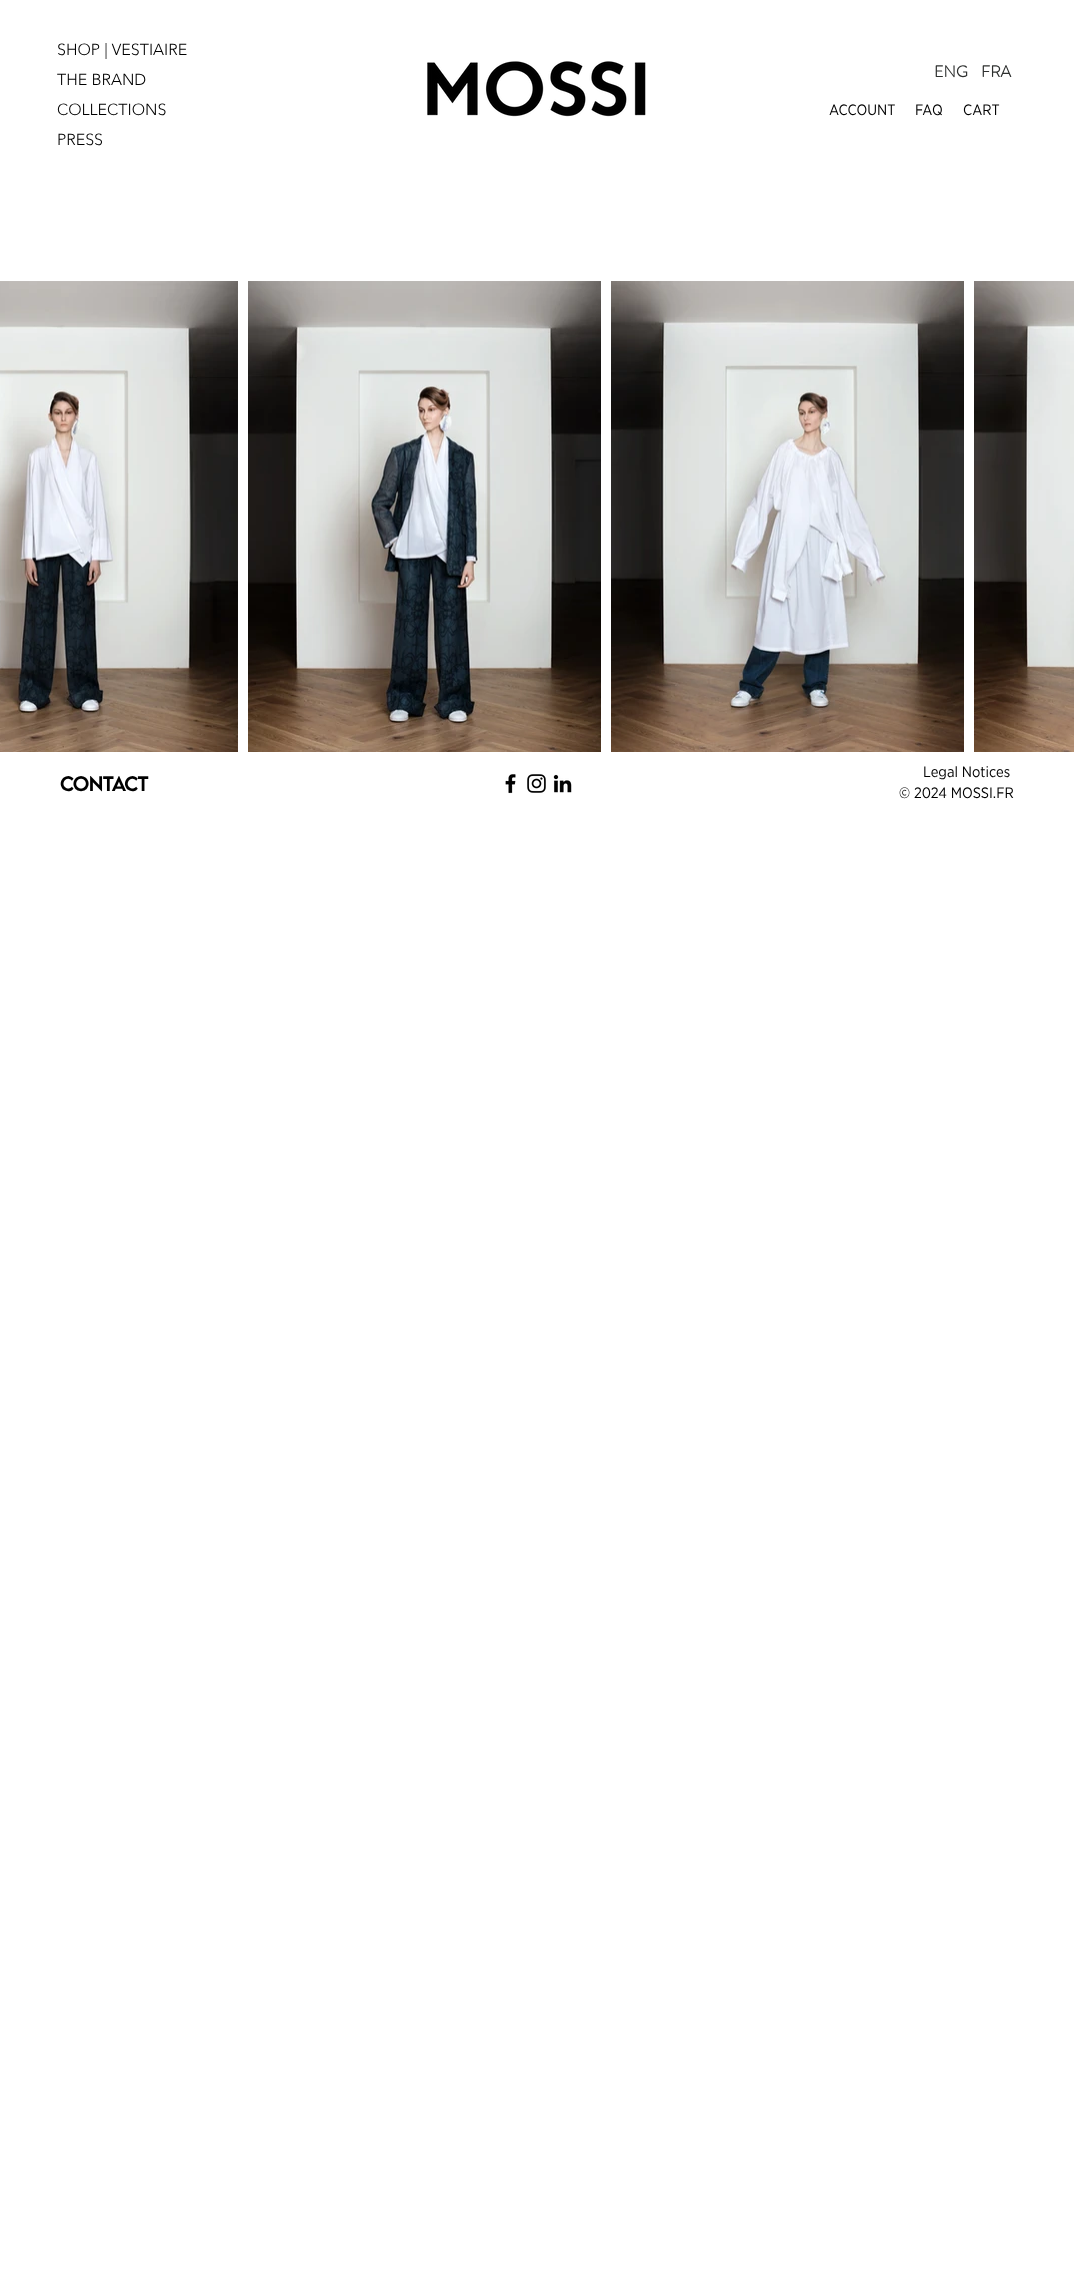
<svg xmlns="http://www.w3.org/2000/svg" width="1074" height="2282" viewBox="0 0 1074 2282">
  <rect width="100%" height="100%" fill="#ffffff"/>
  <text x="57" y="55" font-family="'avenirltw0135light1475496'" font-size="16" font-weight="300" fill="#000000">SHOP | VESTIAIRE</text>
  <text x="57" y="85" font-family="'avenirltw0135light1475496'" font-size="16" font-weight="300" fill="#000000">THE BRAND</text>
  <text x="57" y="115" font-family="'avenirltw0135light1475496'" font-size="16" font-weight="300" fill="#000000">COLLECTIONS</text>
  <text x="57" y="145" font-family="'avenirltw0135light1475496'" font-size="16" font-weight="300" fill="#000000">PRESS</text>
  <image x="427" y="61" width="219" height="56" href="img1.png"/>
  <text x="934" y="77" font-family="'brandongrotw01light'" font-size="16" font-weight="bold" fill="#2e302f">ENG</text>
  <text x="981" y="77" font-family="'brandongrotw01light'" font-size="16" font-weight="bold" fill="#2e302f">FRA</text>
  <text x="829" y="115" font-family="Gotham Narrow" font-size="15" fill="#000000">ACCOUNT</text>
  <text x="915" y="115" font-family="Gotham Narrow" font-size="15" fill="#000000">FAQ</text>
  <text x="963" y="115" font-family="Gotham Narrow" font-size="15" fill="#000000">CART</text>
  <image x="0" y="281" width="238" height="471" href="img2.png"/>
  <image x="248" y="281" width="353" height="471" href="img3.png"/>
  <image x="611" y="281" width="353" height="471" href="img4.png"/>
  <image x="974" y="281" width="100" height="471" href="img5.png"/>
  <text x="60" y="791" font-family="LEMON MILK" font-size="18" font-weight="bold" fill="#000000">Contact</text>
  <image x="505" y="774" width="11" height="20" href="img6.png"/>
  <image x="527" y="774" width="19" height="19" href="img7.png"/>
  <image x="553" y="774" width="19" height="19" href="img8.png"/>
  <text x="923" y="777" font-family="Gotham Narrow" font-size="15" fill="#000000">Legal Notices</text>
  <text x="899" y="798" font-family="Gotham Narrow" font-size="15" fill="#000000">© 2024 MOSSI.FR</text>
</svg>
